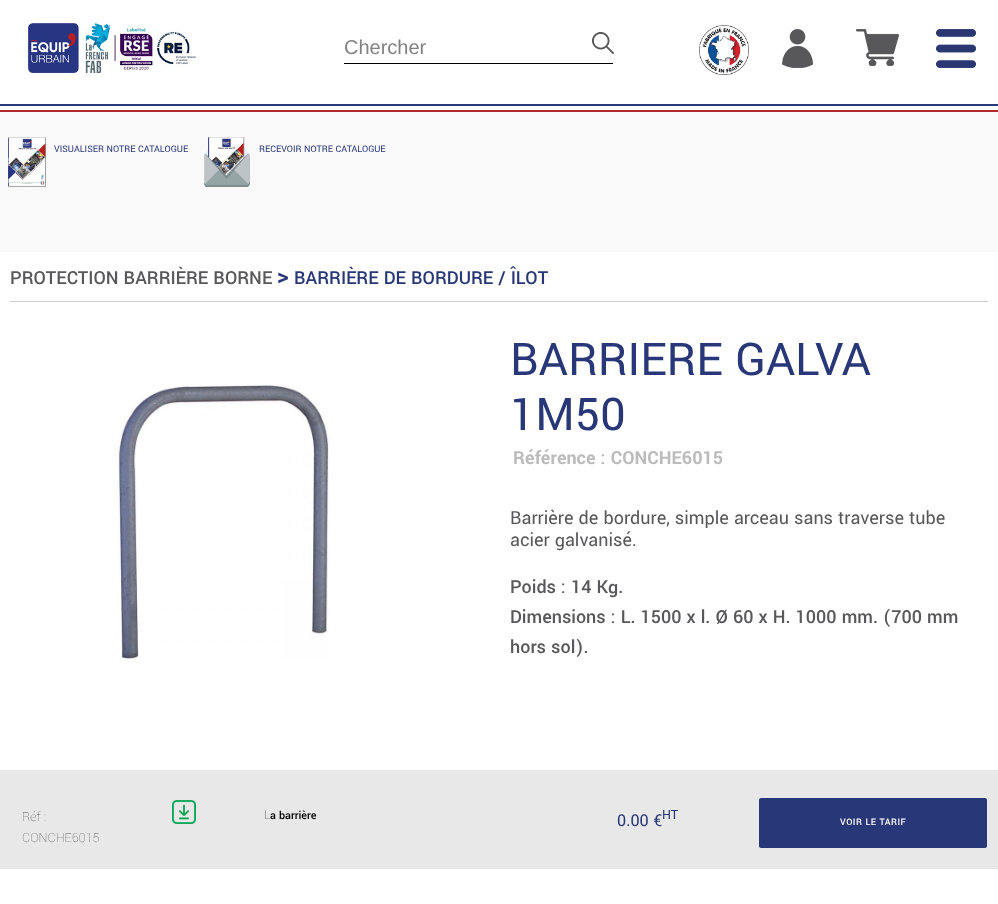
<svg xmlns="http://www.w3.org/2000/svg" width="998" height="904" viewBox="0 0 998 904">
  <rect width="100%" height="100%" fill="#ffffff"/>
  <image x="28" y="23" width="168" height="50" href="img1.png"/>
  <rect x="344" y="63" width="269" height="1" fill="#000000"/>
  <text x="344" y="54" font-family="Liberation Sans" font-size="20" fill="#808080">Chercher</text>
  <image x="592" y="32" width="22" height="22" href="img2.png"/>
  <image x="699" y="25" width="50" height="50" href="img3.png"/>
  <image x="782" y="29" width="31" height="39" href="img4.png"/>
  <image x="856" y="29" width="43" height="37" href="img5.png"/>
  <image x="936" y="29" width="40" height="39" href="img6.png"/>
  <rect x="0" y="104" width="998" height="2" fill="#283777"/>
  <rect x="0" y="110" width="998" height="2" fill="#ae282c"/>
  <rect x="0" y="112" width="998" height="140" fill="#f9f9f9"/>
  <image x="8" y="137" width="38" height="50" href="img7.png"/>
  <text x="54" y="152" font-family="Yantramanav" font-size="10" fill="#283777">VISUALISER NOTRE CATALOGUE</text>
  <image x="204" y="137" width="46" height="50" href="img8.png"/>
  <text x="259" y="152" font-family="Yantramanav" font-size="10" fill="#283777">RECEVOIR NOTRE CATALOGUE</text>
  <rect x="10" y="301" width="978" height="1" fill="#cdcdcd"/>
  <text x="10" y="284" font-family="Yantramanav" font-size="20" font-weight="500" fill="#58585a">PROTECTION BARRIÈRE BORNE</text>
  <text x="277" y="284" font-family="Yantramanav" font-size="25" font-weight="bold" fill="#283777">&gt;</text>
  <text x="294" y="284" font-family="Yantramanav" font-size="20" font-weight="500" fill="#283777">BARRIÈRE DE BORDURE / ÎLOT</text>
  <image x="117" y="384" width="214" height="275" href="img9.png"/>
  <text x="510" y="375" font-family="Yantramanav" font-size="50" fill="#283777">BARRIERE GALVA</text>
  <text x="510" y="430" font-family="Yantramanav" font-size="50" fill="#283777">1M50</text>
  <text x="513" y="464" font-family="Yantramanav" font-size="20" font-weight="bold" fill="#bcbcbd">Référence : CONCHE6015</text>
  <text x="510" y="524" font-family="Yantramanav" font-size="20" fill="#58585a">Barrière de bordure, simple arceau sans traverse tube</text>
  <text x="510" y="546" font-family="Yantramanav" font-size="20" fill="#58585a">acier galvanisé.</text>
  <text x="510" y="593" font-family="Yantramanav" font-size="20" font-weight="500" fill="#58585a">Poids : 14 Kg.</text>
  <text x="510" y="623" font-family="Yantramanav" font-size="20" font-weight="500" fill="#58585a">Dimensions : L. 1500 x l. Ø 60 x H. 1000 mm. (700 mm</text>
  <text x="510" y="653" font-family="Yantramanav" font-size="20" font-weight="500" fill="#58585a">hors sol).</text>
  <rect x="0" y="770" width="998" height="99" fill="#e8e8e8"/>
  <text x="22" y="821" font-family="Yantramanav" font-size="14" font-weight="100" fill="#58585a">Réf :</text>
  <text x="22" y="842" font-family="Yantramanav" font-size="14" font-weight="100" fill="#58585a">CONCHE6015</text>
  <image x="172" y="800" width="24" height="24" href="img10.png"/>
  <text x="264" y="819" font-family="Noto Sans" font-size="12" font-weight="100" fill="#000000">L</text>
  <text x="270" y="819" font-family="Yantramanav" font-size="12" font-weight="500" fill="#000000">a barrière</text>
  <text x="617" y="826" font-family="Yantramanav" font-size="18" fill="#283777">0.00 €</text>
  <text x="662" y="819" font-family="Yantramanav" font-size="14" fill="#283777">HT</text>
  <rect x="759" y="798" width="228" height="50" rx="2" fill="#283777"/>
  <text x="840" y="825" font-family="Yantramanav" font-size="10" font-weight="500" letter-spacing="0.5" fill="#ffffff">VOIR LE TARIF</text>
</svg>
